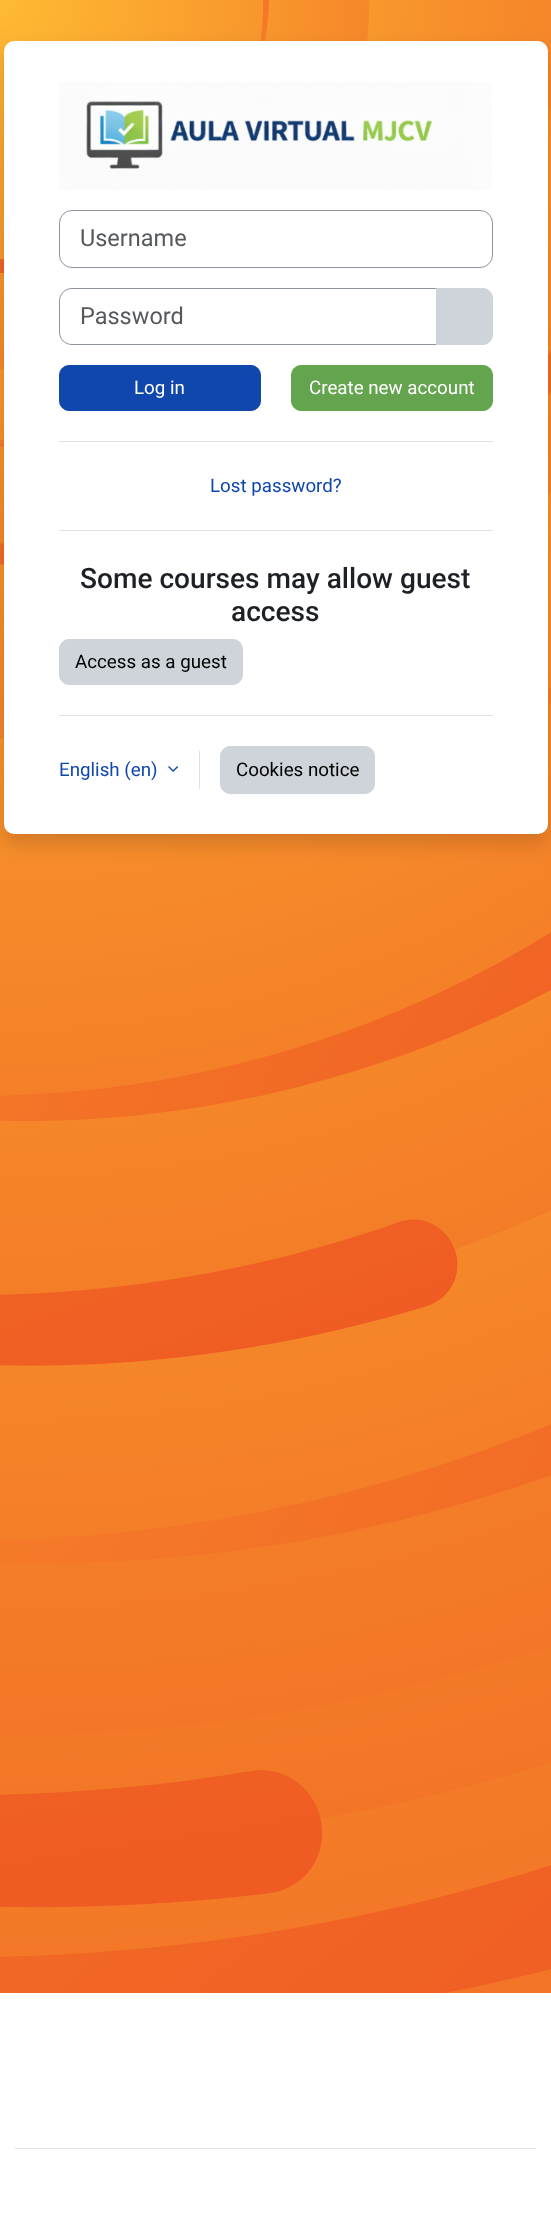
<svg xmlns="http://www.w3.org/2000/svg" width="551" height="2216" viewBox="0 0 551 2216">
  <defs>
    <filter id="blur1" x="-50%" y="-200%" width="200%" height="500%"><feGaussianBlur stdDeviation="10"/></filter>
  </defs>
  <rect width="100%" height="100%" fill="#ffffff"/>
  <image x="0" y="0" width="551" height="1993" href="img1.png"/>
  <rect x="4" y="51" width="544" height="793" rx="10" fill="#000000" fill-opacity="0.15" filter="url(#blur1)"/>
  <rect x="4" y="41" width="544" height="793" rx="10" fill="#ffffff"/>
  <image x="59" y="82" width="433" height="108" href="img2.png"/>
  <rect x="59.5" y="210.5" width="433" height="57" rx="12.5" fill="none" stroke="#8f959e"/>
  <text x="80" y="246" font-family="Roboto" font-size="23.5" fill="#56595c">Username</text>
  <path d="M72 288.5H437.5V344.5H72C65 344.5 59.5 339 59.5 332V301C59.5 294 65 288.5 72 288.5Z" fill="none" stroke="#8f959e"/>
  <text x="80" y="324" font-family="Roboto" font-size="23.5" fill="#56595c">Password</text>
  <path d="M436.5 288.5H483C488 288.5 492.5 293 492.5 298V335C492.5 340 488 344.5 483 344.5H436.5Z" fill="#ced4da" stroke="#ced4da"/>
  <rect x="59.5" y="365.5" width="201" height="45" rx="9.5" fill="#0f47ad" stroke="#0f47ad"/>
  <text x="134" y="394" font-family="Roboto" font-size="18.75" fill="#ffffff">Log in</text>
  <rect x="291.5" y="365.5" width="201" height="45" rx="9.5" fill="#64a44e" stroke="#64a44e"/>
  <text x="309" y="394" font-family="Roboto" font-size="18.75" fill="#ffffff">Create new account</text>
  <rect x="59" y="441" width="434" height="1" fill="#dee2e6"/>
  <text x="210" y="492" font-family="Roboto" font-size="18.75" fill="#0f47ad">Lost password?</text>
  <rect x="59" y="530" width="434" height="1" fill="#dee2e6"/>
  <text x="80" y="588" font-family="Roboto" font-size="28.1" font-weight="500" fill="#1d2125">Some courses may allow guest</text>
  <text x="231" y="621" font-family="Roboto" font-size="28.1" font-weight="500" fill="#1d2125">access</text>
  <rect x="59.5" y="639.5" width="183" height="45" rx="9.5" fill="#ced4da" stroke="#ced4da"/>
  <text x="75" y="668" font-family="Roboto" font-size="18.75" fill="#000000">Access as a guest</text>
  <rect x="59" y="715" width="434" height="1" fill="#dee2e6"/>
  <text x="59" y="776" font-family="Roboto" font-size="18.75" fill="#0f47ad">English (en)</text>
  <image x="168" y="766" width="10" height="6" href="img3.png"/>
  <rect x="199" y="751" width="1" height="38" fill="#dee2e6"/>
  <rect x="220.5" y="746.5" width="154" height="47" rx="9.5" fill="#ced4da" stroke="#ced4da"/>
  <text x="236" y="776" font-family="Roboto" font-size="18.75" fill="#000000">Cookies notice</text>
  <rect x="15" y="2148" width="521" height="1" fill="#dee2e6"/>
</svg>
